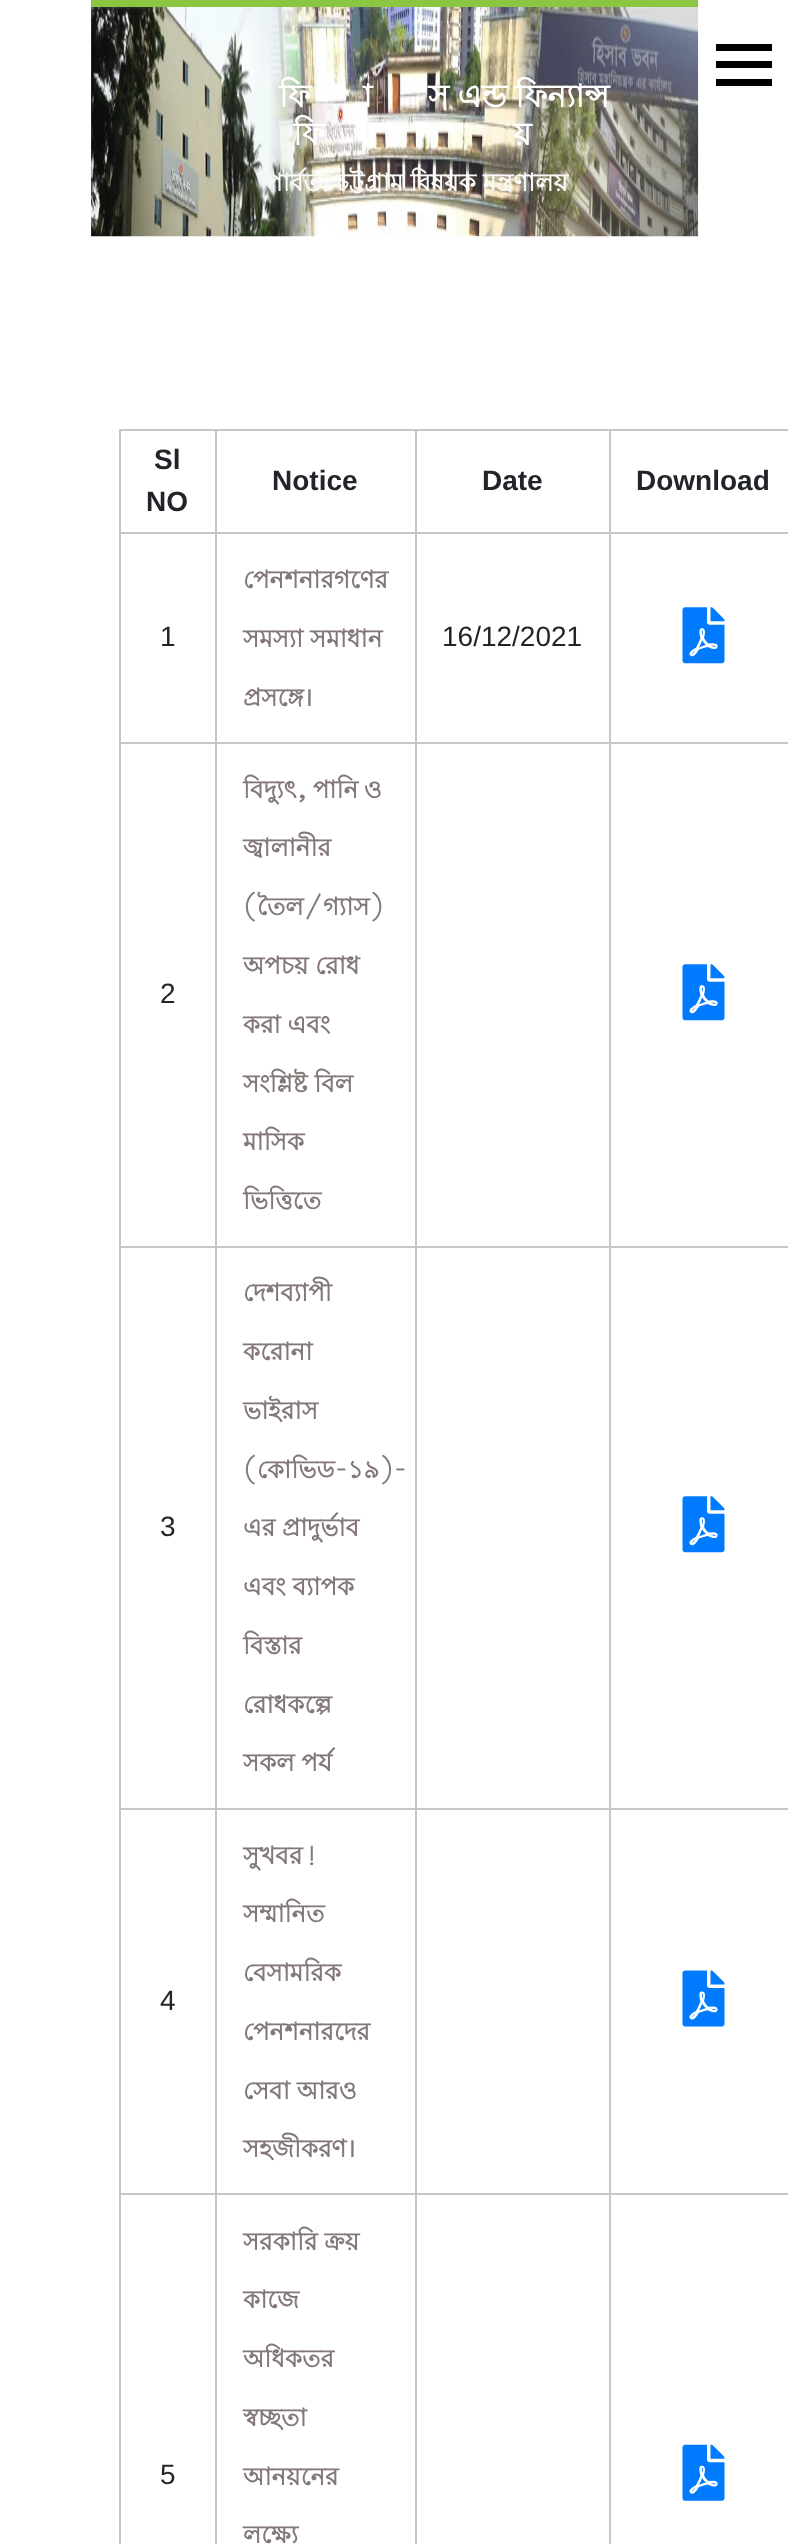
<svg xmlns="http://www.w3.org/2000/svg" width="788" height="2544" viewBox="0 0 788 2544">
  <rect width="100%" height="100%" fill="#ffffff"/>
  <rect x="716" y="44" width="56" height="7" fill="#000000"/>
  <rect x="716" y="61" width="56" height="7" fill="#000000"/>
  <rect x="716" y="79" width="56" height="7" fill="#000000"/>
  <rect x="91" y="0" width="607" height="7" fill="#8bc643"/>
  <image x="91" y="7" width="608" height="230" href="img1.png"/>
  <text x="279" y="107" font-family="Lohit Bengali" font-size="31.5" font-weight="bold" fill="#ffffff">িফ</text>
  <text x="363" y="107" font-family="Lohit Bengali" font-size="31.5" font-weight="bold" fill="#ffffff">া</text>
  <text x="428" y="107" font-family="Lohit Bengali" font-size="31.5" font-weight="bold" fill="#ffffff">স এন্ড ফিন্যান্স</text>
  <text x="293" y="145" font-family="Lohit Bengali" font-size="31.5" font-weight="bold" fill="#ffffff">ফি</text>
  <text x="513" y="145" font-family="Lohit Bengali" font-size="31.5" font-weight="bold" fill="#ffffff">য়</text>
  <text x="266" y="191" font-family="Lohit Bengali" font-size="24.5" font-weight="bold" fill="#f9f9f9">পার্বত্য চট্টগ্রাম বিষয়ক মন্ত্রণালয়</text>
  <rect x="609" y="429" width="179" height="2" fill="#c7c7c7"/>
  <rect x="609" y="532" width="179" height="2" fill="#c7c7c7"/>
  <rect x="609" y="742" width="179" height="2" fill="#c7c7c7"/>
  <rect x="609" y="1246" width="179" height="2" fill="#c7c7c7"/>
  <rect x="609" y="1808" width="179" height="2" fill="#c7c7c7"/>
  <rect x="609" y="2193" width="179" height="2" fill="#c7c7c7"/>
  <rect x="609" y="2193" width="2" height="351" fill="#c7c7c7"/>
  <rect x="415" y="2193" width="196" height="2" fill="#c7c7c7"/>
  <rect x="609" y="1808" width="2" height="387" fill="#c7c7c7"/>
  <rect x="415" y="1808" width="196" height="2" fill="#c7c7c7"/>
  <rect x="609" y="1246" width="2" height="564" fill="#c7c7c7"/>
  <rect x="415" y="1246" width="196" height="2" fill="#c7c7c7"/>
  <rect x="609" y="742" width="2" height="506" fill="#c7c7c7"/>
  <rect x="415" y="742" width="196" height="2" fill="#c7c7c7"/>
  <rect x="609" y="532" width="2" height="212" fill="#c7c7c7"/>
  <rect x="415" y="532" width="196" height="2" fill="#c7c7c7"/>
  <rect x="609" y="429" width="2" height="105" fill="#c7c7c7"/>
  <rect x="415" y="429" width="196" height="2" fill="#c7c7c7"/>
  <rect x="415" y="2193" width="2" height="351" fill="#c7c7c7"/>
  <rect x="215" y="2193" width="202" height="2" fill="#c7c7c7"/>
  <rect x="415" y="1808" width="2" height="387" fill="#c7c7c7"/>
  <rect x="215" y="1808" width="202" height="2" fill="#c7c7c7"/>
  <rect x="415" y="1246" width="2" height="564" fill="#c7c7c7"/>
  <rect x="215" y="1246" width="202" height="2" fill="#c7c7c7"/>
  <rect x="415" y="742" width="2" height="506" fill="#c7c7c7"/>
  <rect x="215" y="742" width="202" height="2" fill="#c7c7c7"/>
  <rect x="415" y="532" width="2" height="212" fill="#c7c7c7"/>
  <rect x="215" y="532" width="202" height="2" fill="#c7c7c7"/>
  <rect x="415" y="429" width="2" height="105" fill="#c7c7c7"/>
  <rect x="215" y="429" width="202" height="2" fill="#c7c7c7"/>
  <rect x="215" y="2193" width="2" height="351" fill="#c7c7c7"/>
  <rect x="119" y="2193" width="98" height="2" fill="#c7c7c7"/>
  <rect x="215" y="1808" width="2" height="387" fill="#c7c7c7"/>
  <rect x="119" y="1808" width="98" height="2" fill="#c7c7c7"/>
  <rect x="215" y="1246" width="2" height="564" fill="#c7c7c7"/>
  <rect x="119" y="1246" width="98" height="2" fill="#c7c7c7"/>
  <rect x="215" y="742" width="2" height="506" fill="#c7c7c7"/>
  <rect x="119" y="742" width="98" height="2" fill="#c7c7c7"/>
  <rect x="215" y="532" width="2" height="212" fill="#c7c7c7"/>
  <rect x="119" y="532" width="98" height="2" fill="#c7c7c7"/>
  <rect x="215" y="429" width="2" height="105" fill="#c7c7c7"/>
  <rect x="119" y="429" width="98" height="2" fill="#c7c7c7"/>
  <rect x="119" y="2193" width="2" height="351" fill="#c7c7c7"/>
  <rect x="119" y="1808" width="2" height="387" fill="#c7c7c7"/>
  <rect x="119" y="1246" width="2" height="564" fill="#c7c7c7"/>
  <rect x="119" y="742" width="2" height="506" fill="#c7c7c7"/>
  <rect x="119" y="532" width="2" height="212" fill="#c7c7c7"/>
  <rect x="119" y="429" width="2" height="105" fill="#c7c7c7"/>
  <text x="154" y="469" font-family="Liberation Sans" font-size="28" font-weight="bold" fill="#212529">Sl</text>
  <text x="146" y="511" font-family="Liberation Sans" font-size="28" font-weight="bold" fill="#212529">NO</text>
  <text x="272" y="490" font-family="Liberation Sans" font-size="28" font-weight="bold" fill="#212529">Notice</text>
  <text x="482" y="490" font-family="Liberation Sans" font-size="28" font-weight="bold" fill="#212529">Date</text>
  <text x="636" y="490" font-family="Liberation Sans" font-size="28" font-weight="bold" fill="#212529">Download</text>
  <text x="160" y="646" font-family="Liberation Sans" font-size="28" fill="#212529">1</text>
  <text x="243" y="588" font-family="Lohit Bengali" font-size="24.5" font-weight="bold" fill="#847777">পেনশনারগণের</text>
  <text x="243" y="647" font-family="Lohit Bengali" font-size="24.5" font-weight="bold" fill="#847777">সমস্যা সমাধান</text>
  <text x="243" y="706" font-family="Lohit Bengali" font-size="24.5" font-weight="bold" fill="#847777">প্রসঙ্গে।</text>
  <text x="442" y="646" font-family="Liberation Sans" font-size="28" fill="#212529">16/12/2021</text>
  <image x="682" y="607" width="43" height="57" href="img2.png"/>
  <text x="160" y="1003" font-family="Liberation Sans" font-size="28" fill="#212529">2</text>
  <text x="243" y="798" word-spacing="-1" font-family="Lohit Bengali" font-size="24.5" font-weight="bold" fill="#847777">বিদ্যুৎ, পানি ও</text>
  <text x="243" y="856" font-family="Lohit Bengali" font-size="24.5" font-weight="bold" fill="#847777">জ্বালানীর</text>
  <text x="243" y="915" font-family="Lohit Bengali" font-size="24.5" font-weight="bold" fill="#847777">(তৈল/গ্যাস)</text>
  <text x="243" y="974" font-family="Lohit Bengali" font-size="24.5" font-weight="bold" fill="#847777">অপচয় রোধ</text>
  <text x="243" y="1033" font-family="Lohit Bengali" font-size="24.5" font-weight="bold" fill="#847777">করা এবং</text>
  <text x="243" y="1092" font-family="Lohit Bengali" font-size="24.5" font-weight="bold" fill="#847777">সংশ্লিষ্ট বিল</text>
  <text x="243" y="1150" font-family="Lohit Bengali" font-size="24.5" font-weight="bold" fill="#847777">মাসিক</text>
  <text x="243" y="1209" font-family="Lohit Bengali" font-size="24.5" font-weight="bold" fill="#847777">ভিত্তিতে</text>
  <image x="682" y="964" width="43" height="57" href="img2.png"/>
  <text x="160" y="1536" font-family="Liberation Sans" font-size="28" fill="#212529">3</text>
  <text x="243" y="1301" font-family="Lohit Bengali" font-size="24.5" font-weight="bold" fill="#847777">দেশব্যাপী</text>
  <text x="243" y="1360" font-family="Lohit Bengali" font-size="24.5" font-weight="bold" fill="#847777">করোনা</text>
  <text x="243" y="1419" font-family="Lohit Bengali" font-size="24.5" font-weight="bold" fill="#847777">ভাইরাস</text>
  <text x="243" y="1478" font-family="Lohit Bengali" font-size="24.5" font-weight="bold" fill="#847777">(কোভিড-১৯)-</text>
  <text x="243" y="1536" font-family="Lohit Bengali" font-size="24.5" font-weight="bold" fill="#847777">এর প্রাদুর্ভাব</text>
  <text x="243" y="1595" font-family="Lohit Bengali" font-size="24.5" font-weight="bold" fill="#847777">এবং ব্যাপক</text>
  <text x="243" y="1654" font-family="Lohit Bengali" font-size="24.5" font-weight="bold" fill="#847777">বিস্তার</text>
  <text x="243" y="1713" font-family="Lohit Bengali" font-size="24.5" font-weight="bold" fill="#847777">রোধকল্পে</text>
  <text x="243" y="1771" font-family="Lohit Bengali" font-size="24.5" font-weight="bold" fill="#847777">সকল পর্য</text>
  <image x="682" y="1496" width="43" height="57" href="img2.png"/>
  <text x="160" y="2010" font-family="Liberation Sans" font-size="28" fill="#212529">4</text>
  <text x="243" y="1864" font-family="Lohit Bengali" font-size="24.5" font-weight="bold" fill="#847777">সুখবর!</text>
  <text x="243" y="1922" font-family="Lohit Bengali" font-size="24.5" font-weight="bold" fill="#847777">সম্মানিত</text>
  <text x="243" y="1981" font-family="Lohit Bengali" font-size="24.5" font-weight="bold" fill="#847777">বেসামরিক</text>
  <text x="243" y="2040" font-family="Lohit Bengali" font-size="24.5" font-weight="bold" fill="#847777">পেনশনারদের</text>
  <text x="243" y="2099" font-family="Lohit Bengali" font-size="24.5" font-weight="bold" fill="#847777">সেবা আরও</text>
  <text x="243" y="2157" font-family="Lohit Bengali" font-size="24.5" font-weight="bold" fill="#847777">সহজীকরণ।</text>
  <image x="682" y="1970" width="43" height="57" href="img3.png"/>
  <text x="160" y="2484" font-family="Liberation Sans" font-size="28" fill="#212529">5</text>
  <text x="243" y="2250" font-family="Lohit Bengali" font-size="24.5" font-weight="bold" fill="#847777">সরকারি ক্রয়</text>
  <text x="243" y="2308" font-family="Lohit Bengali" font-size="24.5" font-weight="bold" fill="#847777">কাজে</text>
  <text x="243" y="2367" font-family="Lohit Bengali" font-size="24.5" font-weight="bold" fill="#847777">অধিকতর</text>
  <text x="243" y="2426" font-family="Lohit Bengali" font-size="24.5" font-weight="bold" fill="#847777">স্বচ্ছতা</text>
  <text x="243" y="2485" font-family="Lohit Bengali" font-size="24.5" font-weight="bold" fill="#847777">আনয়নের</text>
  <text x="243" y="2543" font-family="Lohit Bengali" font-size="24.5" font-weight="bold" fill="#847777">লক্ষ্যে</text>
  <image x="682" y="2444" width="43" height="57" href="img4.png"/>
</svg>
